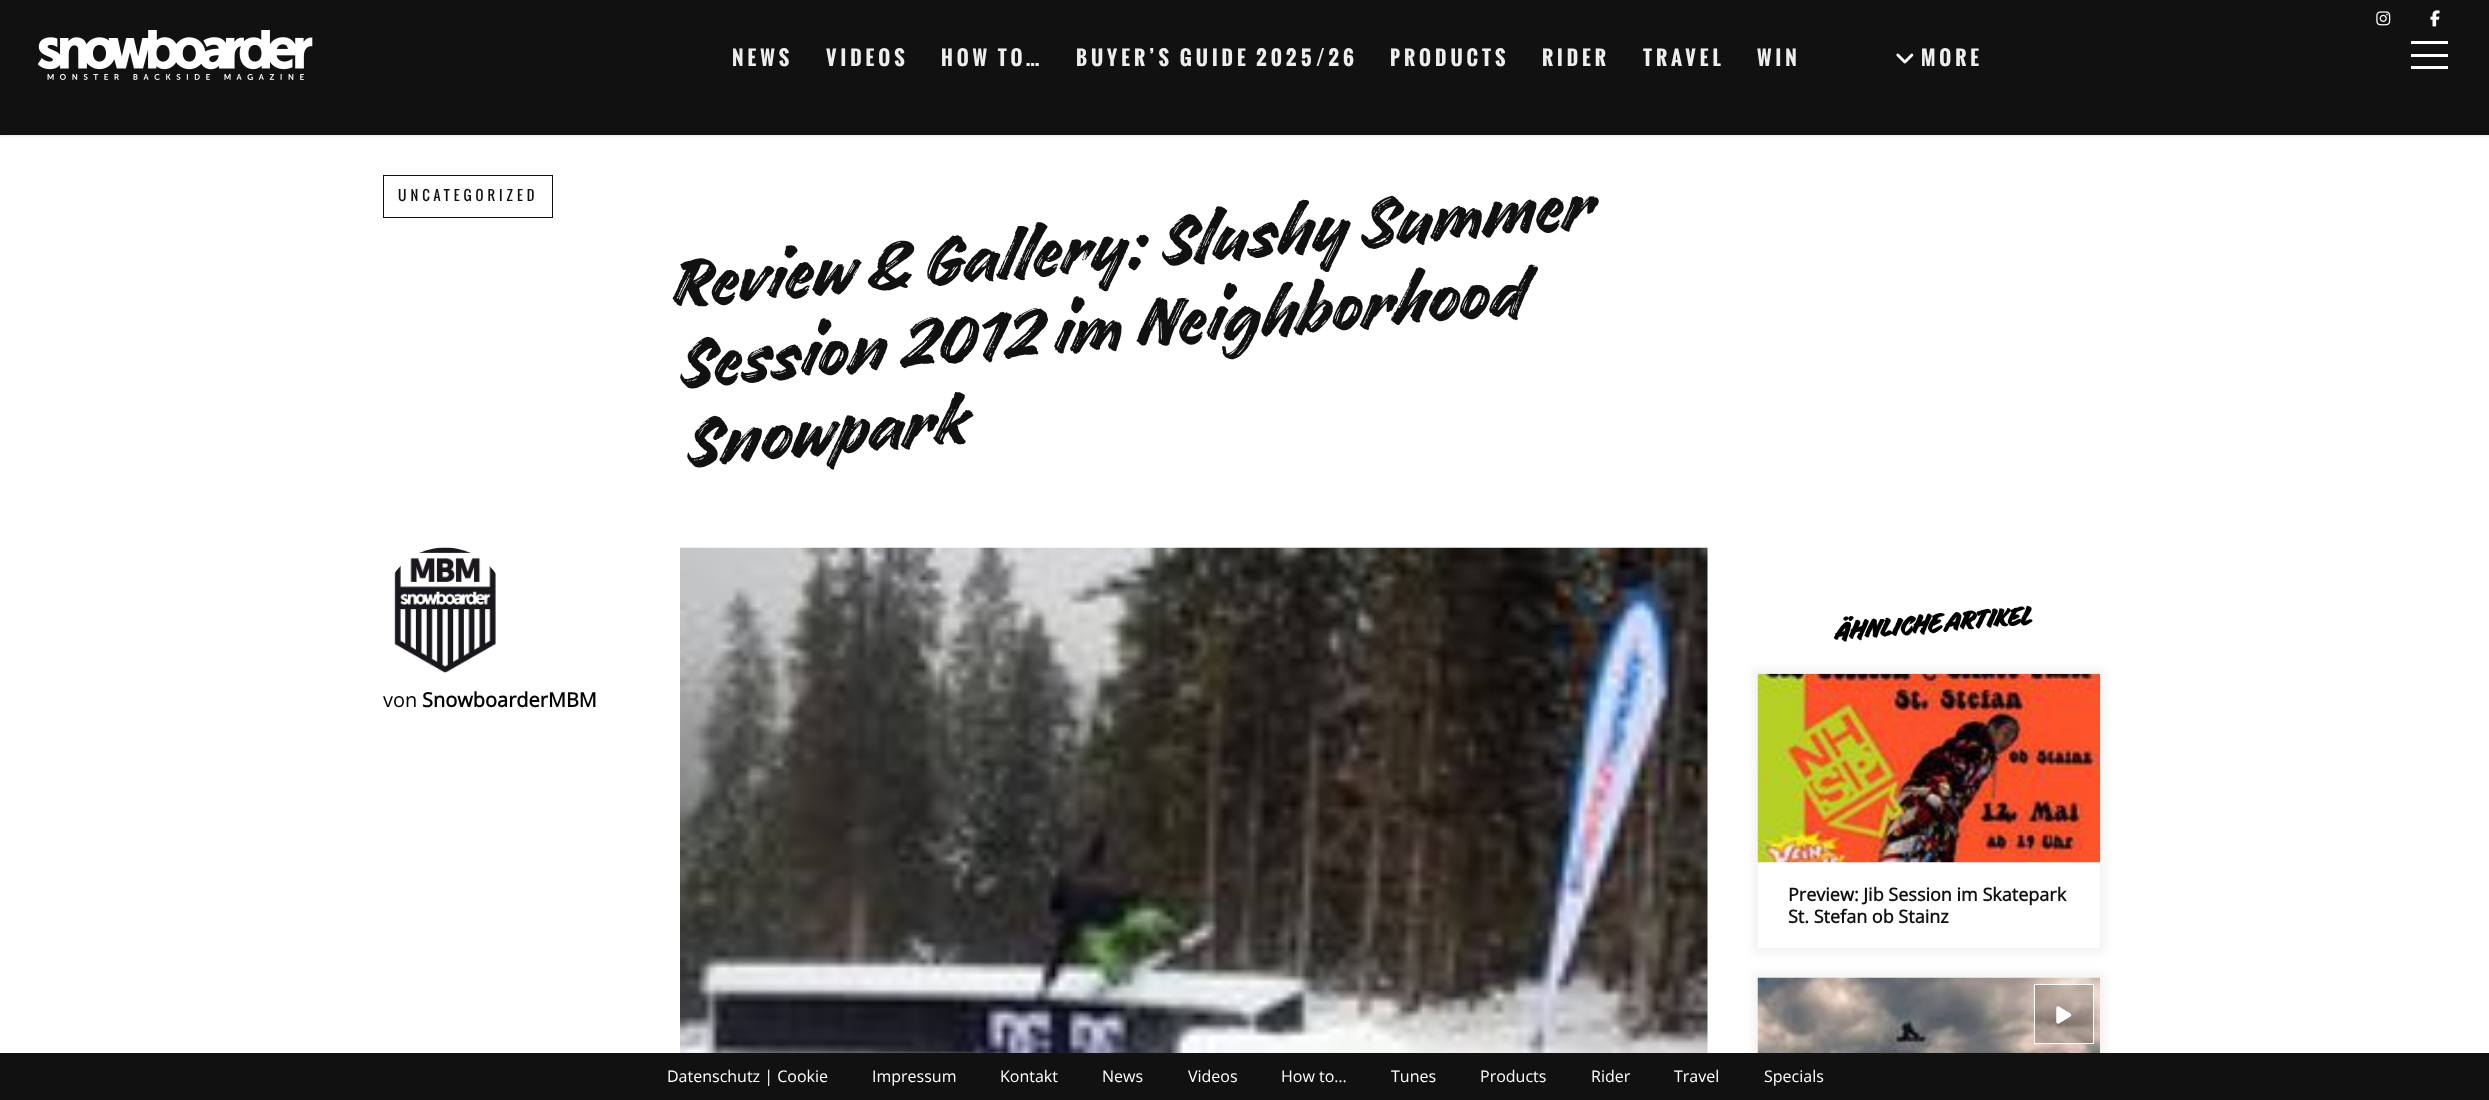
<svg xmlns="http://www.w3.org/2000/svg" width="2489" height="1100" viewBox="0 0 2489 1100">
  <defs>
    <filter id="blur1" x="-50%" y="-200%" width="200%" height="500%"><feGaussianBlur stdDeviation="1"/></filter>
    <clipPath id="clip1"><rect x="733" y="38" width="60" height="40"/></clipPath>
    <clipPath id="clip2"><rect x="1643" y="38" width="81" height="40"/></clipPath>
    <filter id="blur2" x="-50%" y="-200%" width="200%" height="500%"><feGaussianBlur stdDeviation="5"/></filter>
  </defs>
  <rect width="100%" height="100%" fill="#ffffff"/>
  <rect x="0" y="1" width="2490" height="135" fill="#000000" fill-opacity="0.1" filter="url(#blur1)"/>
  <rect x="0" y="0" width="2489" height="135" fill="#111111"/>
  <image x="2376" y="11" width="15" height="15" href="img1.png"/>
  <image x="2430" y="10" width="10" height="17" href="img2.png"/>
  <image x="38" y="30" width="275" height="50" href="img3.png"/>
  <g clip-path="url(#clip1)">
    <text x="732" y="66" font-family="Oswald" font-size="20" font-weight="bold" letter-spacing="4" fill="#eeeeee">NEWS</text>
  </g>
  <text x="826" y="66" font-family="Oswald" font-size="20" font-weight="bold" letter-spacing="4" fill="#eeeeee">VIDEOS</text>
  <text x="941" y="66" font-family="Oswald" font-size="20" font-weight="bold" letter-spacing="4" fill="#eeeeee">HOW TO</text>
  <text x="1026" y="66" font-family="'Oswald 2'" font-size="20" font-weight="bold" letter-spacing="4" fill="#eeeeee">…</text>
  <text x="1076" y="66" font-family="Oswald" font-size="20" font-weight="bold" letter-spacing="4" fill="#eeeeee">BUYER’S GUIDE 2025/26</text>
  <text x="1390" y="66" font-family="Oswald" font-size="20" font-weight="bold" letter-spacing="4" fill="#eeeeee">PRODUCTS</text>
  <text x="1542" y="66" font-family="Oswald" font-size="20" font-weight="bold" letter-spacing="4" fill="#eeeeee">RIDER</text>
  <g clip-path="url(#clip2)">
    <text x="1643" y="66" font-family="Oswald" font-size="20" font-weight="bold" letter-spacing="4" fill="#eeeeee">TRAVEL</text>
  </g>
  <text x="1757" y="66" font-family="Oswald" font-size="20" font-weight="bold" letter-spacing="4" fill="#eeeeee">WIN</text>
  <image x="1896" y="53" width="18" height="11" href="img4.png"/>
  <text x="1921" y="66" font-family="Oswald" font-size="20" font-weight="bold" letter-spacing="4" fill="#eeeeee">MORE</text>
  <rect x="2411" y="54" width="37" height="3" fill="#ffffff"/>
  <rect x="2411" y="41" width="37" height="3" fill="#ffffff"/>
  <rect x="2411" y="66" width="37" height="3" fill="#ffffff"/>
  <rect x="383.5" y="175.5" width="169" height="42" fill="none" stroke="#111111"/>
  <text x="398" y="201" font-family="Oswald" font-size="13.75" letter-spacing="4" fill="#111111">UNCATEGORIZED</text>
  <text x="671" y="308" transform="rotate(-5 671 308)" font-family="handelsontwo" font-size="80" font-weight="100" fill="#111111">Review &amp; Gallery: Slushy Summer</text>
  <text x="678" y="388" transform="rotate(-5 678 388)" font-family="handelsontwo" font-size="80" font-weight="100" fill="#111111">Session 2012 im Neighborhood</text>
  <text x="685" y="467" transform="rotate(-5 685 467)" font-family="handelsontwo" font-size="80" font-weight="100" fill="#111111">Snowpark</text>
  <image x="394" y="547" width="102" height="126" href="img5.png"/>
  <text x="383" y="707" font-family="Open Sans" font-size="20" fill="#000000">von</text>
  <text x="422" y="707" font-family="Open Sans" font-size="20" font-weight="bold" fill="#000000">SnowboarderMBM</text>
  <image x="680" y="547" width="1028" height="506" href="img6.png"/>
  <text x="1834" y="641" transform="rotate(-5 1834 641)" font-family="handelsontwo" font-size="30" font-weight="bold" fill="#000000">ÄHNLICHE ARTIKEL</text>
  <rect x="1753" y="669" width="352" height="284" fill="#000000" fill-opacity="0.05" filter="url(#blur2)"/>
  <rect x="1758" y="862" width="342" height="86" fill="#ffffff"/>
  <image x="1757" y="673" width="343" height="190" href="img7.png"/>
  <text x="1788" y="901" font-family="Open Sans" font-size="18" font-weight="bold" fill="#111111">Preview: Jib Session im Skatepark</text>
  <text x="1788" y="923" font-family="Open Sans" font-size="18" font-weight="bold" fill="#111111">St. Stefan ob Stainz</text>
  <rect x="1753" y="973" width="352" height="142" fill="#000000" fill-opacity="0.05" filter="url(#blur2)"/>
  <image x="1757" y="977" width="343" height="76" href="img8.png"/>
  <rect x="2034.5" y="984.5" width="59" height="59" fill="#000000" fill-opacity="0.2" stroke="#ffffff"/>
  <image x="2056" y="1006" width="16" height="18" href="img9.png"/>
  <rect x="0" y="1053" width="2489" height="47" fill="#111111"/>
  <text x="667" y="1082" font-family="Open Sans" font-size="16" fill="#ffffff">Datenschutz | Cookie</text>
  <text x="872" y="1082" font-family="Open Sans" font-size="16" fill="#ffffff">Impressum</text>
  <text x="1000" y="1082" font-family="Open Sans" font-size="16" fill="#ffffff">Kontakt</text>
  <text x="1102" y="1082" font-family="Open Sans" font-size="16" fill="#ffffff">News</text>
  <text x="1188" y="1082" font-family="Open Sans" font-size="16" fill="#ffffff">Videos</text>
  <text x="1281" y="1082" font-family="Open Sans" font-size="16" fill="#ffffff">How to…</text>
  <text x="1391" y="1082" font-family="Open Sans" font-size="16" fill="#ffffff">Tunes</text>
  <text x="1480" y="1082" font-family="Open Sans" font-size="16" fill="#ffffff">Products</text>
  <text x="1591" y="1082" font-family="Open Sans" font-size="16" fill="#ffffff">Rider</text>
  <text x="1674" y="1082" font-family="Open Sans" font-size="16" fill="#ffffff">Travel</text>
  <text x="1764" y="1082" font-family="Open Sans" font-size="16" fill="#ffffff">Specials</text>
</svg>
